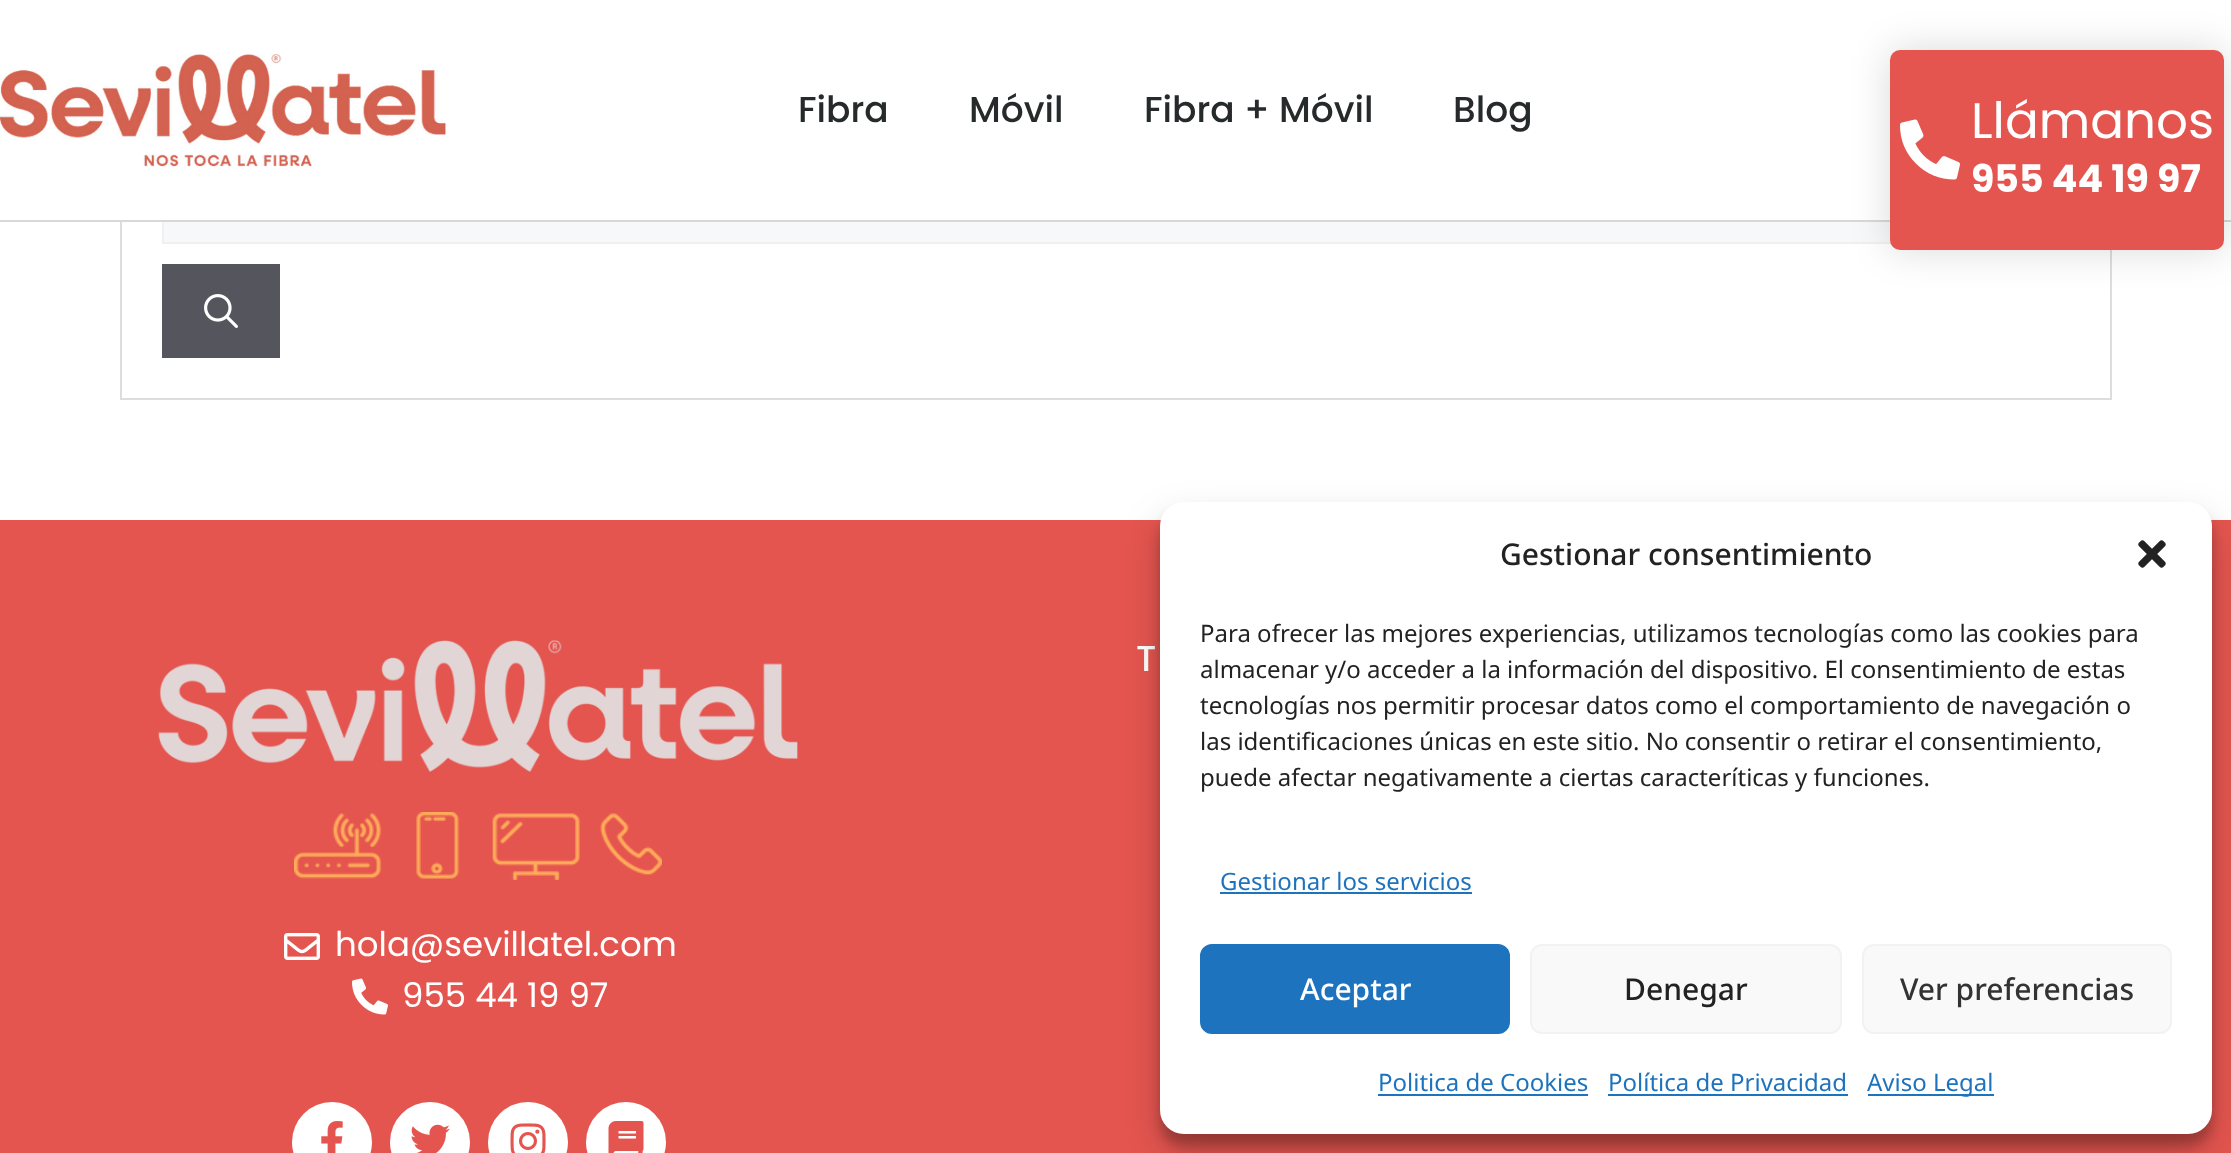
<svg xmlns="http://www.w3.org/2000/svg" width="2231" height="1153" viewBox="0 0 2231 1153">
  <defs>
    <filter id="blur1" x="-50%" y="-200%" width="200%" height="500%"><feGaussianBlur stdDeviation="19"/></filter>
    <filter id="blur2" x="-50%" y="-200%" width="200%" height="500%"><feGaussianBlur stdDeviation="6"/></filter>
    <filter id="blur3" x="-50%" y="-200%" width="200%" height="500%"><feGaussianBlur stdDeviation="20"/></filter>
  </defs>
  <rect width="100%" height="100%" fill="#ffffff"/>
  <rect x="121" y="107" width="1990" height="292" fill="none" stroke="#dddddd" stroke-width="2"/>
  <rect x="164" y="222" width="1727" height="20" fill="#f7f8f9"/>
  <rect x="163" y="149" width="1906" height="94" fill="none" stroke="#f0f0f0" stroke-width="2"/>
  <rect x="120" y="106" width="1992" height="114" fill="#ffffff"/>
  <rect x="0" y="220" width="2231" height="2" fill="#d8d8d8"/>
  <image x="0" y="54" width="446" height="113" href="img1.png"/>
  <text x="798" y="122" font-family="Poppins" font-size="36" font-weight="500" fill="#262a2b">Fibra</text>
  <text x="969" y="122" font-family="Poppins" font-size="36" font-weight="500" fill="#262a2b">Móvil</text>
  <text x="1144" y="122" font-family="Poppins" font-size="36" font-weight="500" fill="#262a2b">Fibra + Móvil</text>
  <text x="1453" y="122" font-family="Poppins" font-size="36" font-weight="500" fill="#262a2b">Blog</text>
  <rect x="1890" y="50" width="334" height="200" rx="10" fill="#000000" fill-opacity="0.15" filter="url(#blur1)"/>
  <rect x="1890" y="50" width="334" height="200" rx="10" fill="#e5554f"/>
  <image x="1900" y="119" width="60" height="61" href="img2.png"/>
  <text x="1971" y="138" font-family="Poppins" font-size="50" fill="#ffffff">Llámanos</text>
  <text x="1971" y="192" font-family="Poppins" font-size="38" font-weight="bold" fill="#ffffff">955 44 19 97</text>
  <rect x="162" y="264" width="118" height="94" fill="#55555e"/>
  <image x="204" y="294" width="34" height="34" href="img3.png"/>
  <rect x="0" y="520" width="2231" height="633" fill="#e5554f"/>
  <text x="1136" y="671" font-family="Poppins" font-size="36" font-weight="500" fill="#ffffff">T</text>
  <image x="158" y="640" width="640" height="132" href="img4.png"/>
  <image x="294" y="812" width="368" height="68" href="img5.png"/>
  <image x="284" y="933" width="36" height="27" href="img6.png"/>
  <text x="335" y="956" font-family="Poppins" font-size="34" fill="#ffffff">hola@sevillatel.com</text>
  <image x="352" y="978" width="36" height="37" href="img7.png"/>
  <text x="402" y="1007" font-family="Poppins" font-size="34" fill="#ffffff">955 44 19 97</text>
  <circle cx="332" cy="1142" r="40" fill="#ffffff"/>
  <image x="321" y="1121" width="22" height="32" href="img8.png"/>
  <circle cx="430" cy="1142" r="40" fill="#ffffff"/>
  <image x="411" y="1124" width="39" height="29" href="img9.png"/>
  <circle cx="528" cy="1142" r="40" fill="#ffffff"/>
  <image x="510" y="1123" width="36" height="30" href="img10.png"/>
  <circle cx="626" cy="1142" r="40" fill="#ffffff"/>
  <image x="608" y="1121" width="36" height="32" href="img11.png"/>
  <rect x="1160" y="514" width="1052" height="632" rx="24" fill="#000000" fill-opacity="0.23" filter="url(#blur2)"/>
  <rect x="1160" y="522" width="1052" height="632" rx="24" fill="#000000" fill-opacity="0.19" filter="url(#blur3)"/>
  <rect x="1160" y="502" width="1052" height="632" rx="24" fill="#ffffff"/>
  <text x="1500" y="565" font-family="Noto Sans" font-size="30" font-weight="500" fill="#222222">Gestionar consentimiento</text>
  <image x="2138" y="540" width="28" height="28" href="img12.png"/>
  <text x="1200" y="642" font-family="Noto Sans" font-size="24" fill="#222222">Para ofrecer las mejores experiencias, utilizamos tecnologías como las cookies para</text>
  <text x="1200" y="678" font-family="Noto Sans" font-size="24" fill="#222222">almacenar y/o acceder a la información del dispositivo. El consentimiento de estas</text>
  <text x="1200" y="714" font-family="Noto Sans" font-size="24" fill="#222222">tecnologías nos permitir procesar datos como el comportamiento de navegación o</text>
  <text x="1200" y="750" font-family="Noto Sans" font-size="24" fill="#222222">las identificaciones únicas en este sitio. No consentir o retirar el consentimiento,</text>
  <text x="1200" y="786" font-family="Noto Sans" font-size="24" fill="#222222">puede afectar negativamente a ciertas caracteríticas y funciones.</text>
  <text x="1220" y="890" font-family="Noto Sans" font-size="24" fill="#1e73be">Gestionar los servicios</text>
  <rect x="1220" y="892" width="252" height="2" fill="#1e73be"/>
  <rect x="1201" y="945" width="308" height="88" rx="11" fill="#1e73be" stroke="#1e73be" stroke-width="2"/>
  <text x="1300" y="1000" font-family="Noto Sans" font-size="30" font-weight="500" fill="#ffffff">Aceptar</text>
  <rect x="1531" y="945" width="310" height="88" rx="11" fill="#f9f9f9" stroke="#f2f2f2" stroke-width="2"/>
  <text x="1624" y="1000" font-family="Noto Sans" font-size="30" font-weight="500" fill="#222222">Denegar</text>
  <rect x="1863" y="945" width="308" height="88" rx="11" fill="#f9f9f9" stroke="#f2f2f2" stroke-width="2"/>
  <text x="1900" y="1000" font-family="Noto Sans" font-size="30" font-weight="500" fill="#333333">Ver preferencias</text>
  <text x="1378" y="1091" font-family="Noto Sans" font-size="24" fill="#1e73be">Politica de Cookies</text>
  <rect x="1378" y="1094" width="210" height="2" fill="#1e73be"/>
  <text x="1608" y="1091" font-family="Noto Sans" font-size="24" fill="#1e73be">Política de Privacidad</text>
  <rect x="1608" y="1094" width="240" height="2" fill="#1e73be"/>
  <rect x="1868" y="1094" width="126" height="2" fill="#1e73be"/>
  <text x="1867" y="1091" font-family="Noto Sans" font-size="24" fill="#1e73be">Aviso Legal</text>
</svg>
